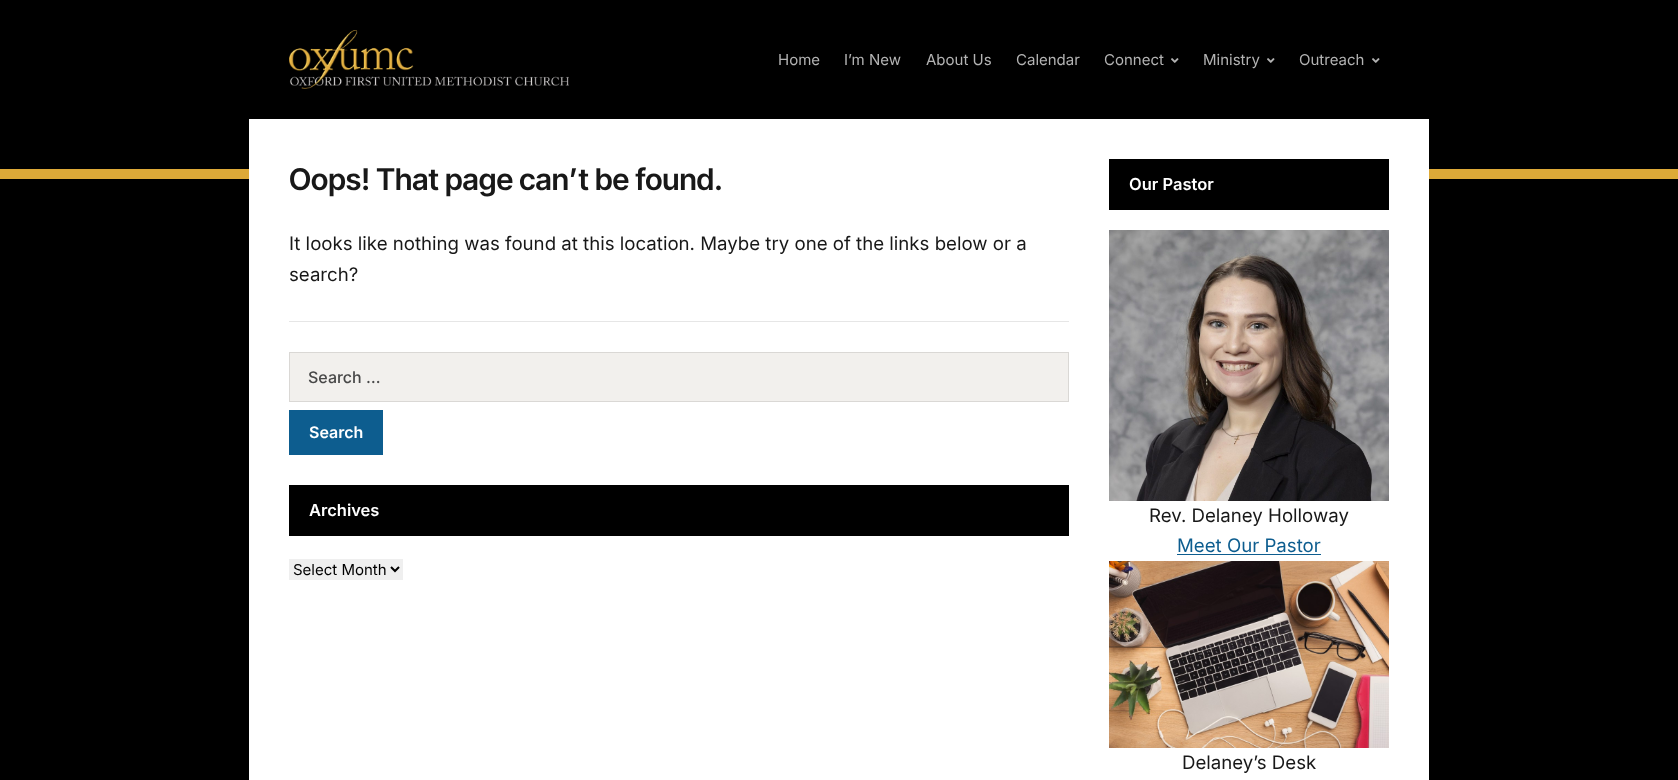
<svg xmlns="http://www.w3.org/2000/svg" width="1678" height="780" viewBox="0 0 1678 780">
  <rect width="100%" height="100%" fill="#000000"/>
  <rect x="0" y="169" width="1678" height="10" fill="#dda938"/>
  <image x="289" y="30" width="280" height="59" href="img1.png"/>
  <text x="778" y="65" font-family="Inter" font-size="15" fill="#b3b3b3">Home</text>
  <text x="844" y="65" font-family="Inter" font-size="15" fill="#b3b3b3">I’m New</text>
  <text x="926" y="65" font-family="Inter" font-size="15" fill="#b3b3b3">About Us</text>
  <text x="1016" y="65" font-family="Inter" font-size="15" fill="#b3b3b3">Calendar</text>
  <text x="1104" y="65" font-family="Inter" font-size="15" fill="#b3b3b3">Connect</text>
  <image x="1171" y="58" width="8" height="5" href="img2.png"/>
  <text x="1203" y="65" font-family="Inter" font-size="15" fill="#b3b3b3">Ministry</text>
  <image x="1267" y="58" width="8" height="5" href="img2.png"/>
  <text x="1299" y="65" font-family="Inter" font-size="15" fill="#b3b3b3">Outreach</text>
  <image x="1372" y="58" width="8" height="5" href="img2.png"/>
  <rect x="249" y="119" width="1180" height="661" fill="#ffffff"/>
  <text x="289" y="190" font-family="Inter Tight" font-size="30" font-weight="600" fill="#181818">Oops! That page can’t be found.</text>
  <rect x="289" y="321" width="780" height="1" fill="#e6e6e6"/>
  <text x="289" y="250" font-family="Inter" font-size="18.65" fill="#181818">It looks like nothing was found at this location. Maybe try one of the links below or a</text>
  <text x="289" y="281" font-family="Inter" font-size="18.65" fill="#181818">search?</text>
  <rect x="289.5" y="352.5" width="779" height="49" fill="#f2f0ed" stroke="#dad8d5"/>
  <text x="308" y="383" font-family="Inter" font-size="16" font-weight="500" fill="#484848">Search …</text>
  <rect x="289" y="410" width="94" height="45" fill="#0d5d8f"/>
  <text x="309" y="438" font-family="Inter" font-size="16" font-weight="600" fill="#ffffff">Search</text>
  <rect x="289" y="485" width="780" height="51" fill="#000000"/>
  <text x="309" y="516" font-family="Inter" font-size="16.5" font-weight="600" fill="#ffffff">Archives</text>
  <rect x="289" y="559" width="114" height="21" fill="#efefef"/>
  <path d="M391 567L395 571L399 567" fill="none" stroke="#000000" stroke-width="2"/>
  <text x="293" y="575" font-family="Inter" font-size="15" fill="#000000">Select Month</text>
  <rect x="1109" y="159" width="280" height="51" fill="#000000"/>
  <text x="1129" y="190" font-family="Inter" font-size="16.5" font-weight="600" fill="#ffffff">Our Pastor</text>
  <image x="1109" y="230" width="280" height="271" href="img3.png"/>
  <text x="1149" y="522" font-family="Inter" font-size="18.65" fill="#181818">Rev. Delaney Holloway</text>
  <text x="1177" y="552" font-family="Inter" font-size="18.65" fill="#0d5d8f">Meet Our Pastor</text>
  <rect x="1177" y="554" width="144" height="1" fill="#0d5d8f"/>
  <image x="1109" y="561" width="280" height="187" href="img4.png"/>
  <text x="1182" y="769" font-family="Inter" font-size="18.65" fill="#181818">Delaney’s Desk</text>
</svg>
